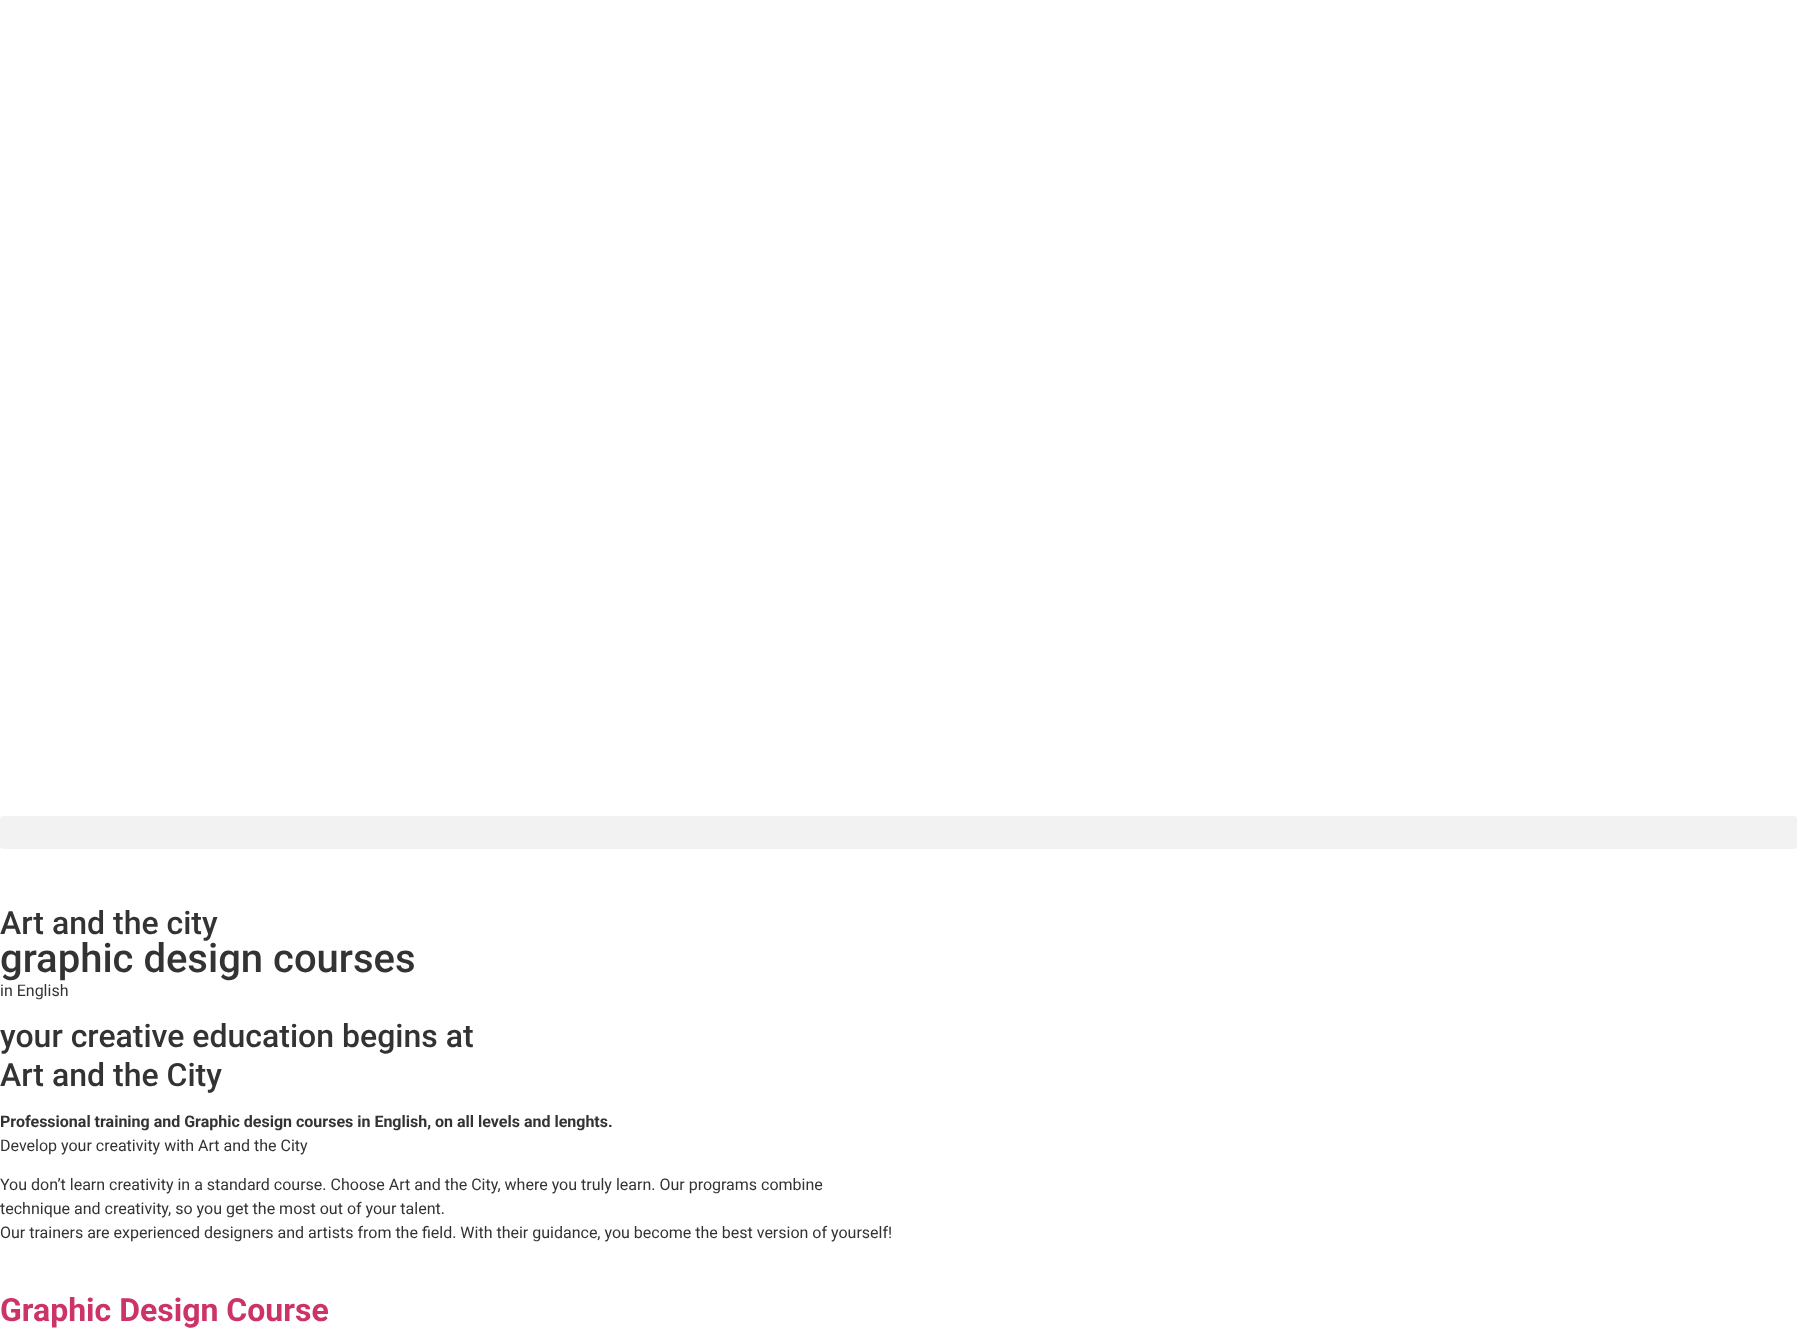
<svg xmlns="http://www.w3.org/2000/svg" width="1797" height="1344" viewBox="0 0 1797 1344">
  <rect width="100%" height="100%" fill="#ffffff"/>
  <rect x="0" y="816" width="1797" height="33" rx="3" fill="#f2f2f2"/>
  <text x="0" y="934" font-family="Roboto" font-size="32" font-weight="500" fill="#333333">Art and the city</text>
  <text x="0" y="972" font-family="Roboto" font-size="40" font-weight="500" fill="#333333">graphic design courses</text>
  <text x="0" y="996" font-family="Roboto" font-size="16" fill="#333333">in English</text>
  <text x="0" y="1047" font-family="Roboto" font-size="32" font-weight="500" fill="#333333">your creative education begins at</text>
  <text x="0" y="1086" font-family="Roboto" font-size="32" font-weight="500" fill="#333333">Art and the City</text>
  <text x="0" y="1127" font-family="Roboto" font-size="16" font-weight="bold" fill="#333333">Professional training and Graphic design courses in English, on all levels and lenghts.</text>
  <text x="0" y="1151" font-family="Roboto" font-size="16" fill="#333333">Develop your creativity with Art and the City</text>
  <text x="0" y="1190" font-family="Roboto" font-size="16" fill="#333333">You don’t learn creativity in a standard course. Choose Art and the City, where you truly learn. Our programs combine</text>
  <text x="0" y="1214" font-family="Roboto" font-size="16" fill="#333333">technique and creativity, so you get the most out of your talent.</text>
  <text x="0" y="1238" font-family="Roboto" font-size="16" fill="#333333">Our trainers are experienced designers and artists from the field. With their guidance, you become the best version of yourself!</text>
  <text x="0" y="1321" font-family="Roboto" font-size="32" font-weight="bold" fill="#cc3366">Graphic Design Course</text>
</svg>
